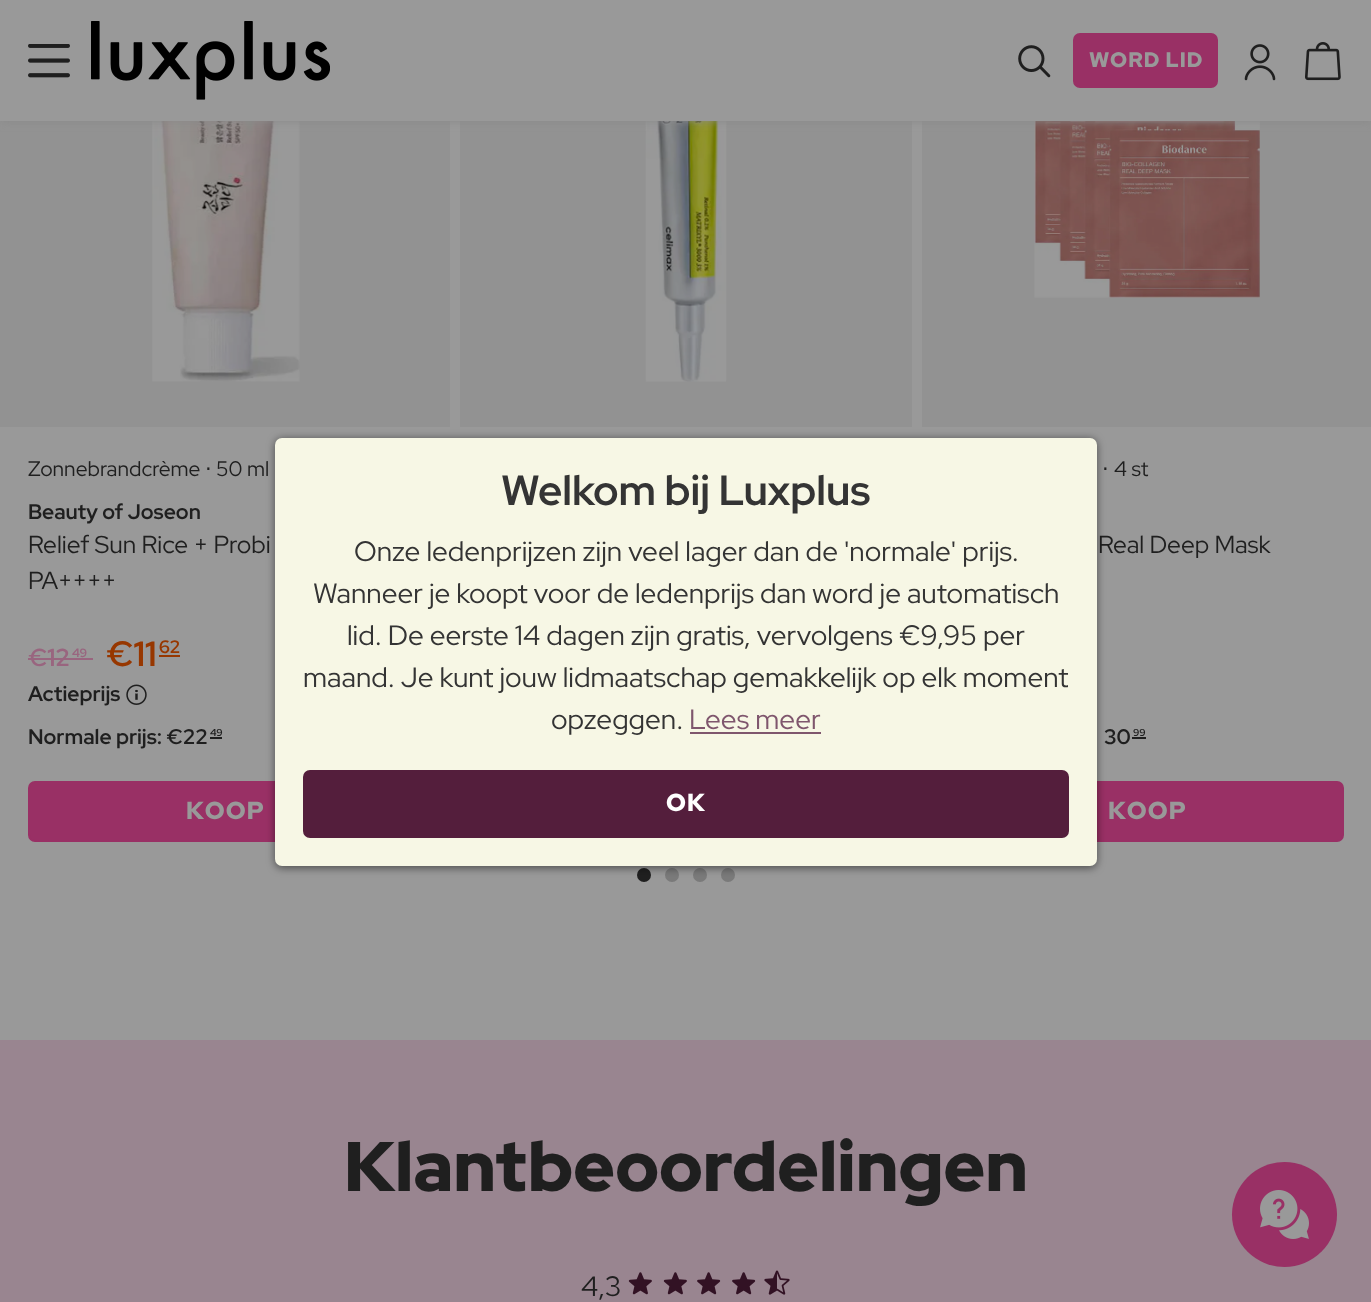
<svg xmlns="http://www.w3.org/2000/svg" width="1371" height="1302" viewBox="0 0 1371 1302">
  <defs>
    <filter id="blur1" x="-50%" y="-200%" width="200%" height="500%"><feGaussianBlur stdDeviation="5"/></filter>
    <filter id="blur2" x="-50%" y="-200%" width="200%" height="500%"><feGaussianBlur stdDeviation="4.5"/></filter>
  </defs>
  <rect width="100%" height="100%" fill="#999999"/>
  <rect x="460" y="121" width="452" height="306" fill="#929292"/>
  <image x="645" y="121" width="82" height="261" href="img6.png"/>
  <rect x="0" y="121" width="450" height="306" fill="#929292"/>
  <image x="152" y="121" width="148" height="261" href="img7.png"/>
  <rect x="922" y="121" width="449" height="306" fill="#929292"/>
  <image x="1034" y="121" width="226" height="177" href="img9.png"/>
  <rect x="0" y="0" width="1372" height="121" fill="#898989" filter="url(#blur1)"/>
  <rect x="0" y="0" width="1371" height="121" fill="#999999"/>
  <image x="28" y="44" width="42" height="34" href="img1.png"/>
  <image x="91" y="21" width="239" height="79" href="img2.png"/>
  <image x="1018" y="45" width="33" height="33" href="img3.png"/>
  <rect x="1074" y="34" width="143" height="53" rx="6" fill="#993065" stroke="#993065" stroke-width="2"/>
  <text x="1089" y="67" font-family="Red Hat Display" font-size="21" font-weight="900" letter-spacing="1" fill="#999999">WORD LID</text>
  <image x="1244" y="44" width="32" height="37" href="img4.png"/>
  <image x="1305" y="42" width="36" height="39" href="img5.png"/>
  <text x="28" y="476" font-family="Red Hat Display" font-size="21" fill="#1f1f1f">Zonnebrandcrème</text>
  <text x="205" y="476" font-family="DejaVu Sans" font-size="21" fill="#1f1f1f">⋅</text>
  <text x="216" y="476" font-family="Red Hat Display" font-size="21" fill="#1f1f1f">50 ml</text>
  <text x="28" y="519" font-family="Red Hat Display" font-size="21" font-weight="bold" fill="#1f1f1f">Beauty of Joseon</text>
  <text x="28" y="553" font-family="Red Hat Display" font-size="24.5" fill="#1f1f1f">Relief Sun Rice + Probi</text>
  <text x="28" y="589" font-family="Red Hat Display" font-size="24.5" fill="#1f1f1f">PA++++</text>
  <text x="28" y="666" font-family="Red Hat Display" font-size="24.5" font-weight="bold" fill="#99657f">€12</text>
  <text x="72" y="657" font-family="Red Hat Display" font-size="12" font-weight="bold" fill="#99657f">49</text>
  <rect x="28" y="658" width="65" height="2" fill="#99657f"/>
  <text x="106" y="666" font-family="Red Hat Display" font-size="35" font-weight="bold" fill="#973700">€11</text>
  <text x="159" y="653" font-family="Red Hat Display" font-size="18" font-weight="bold" fill="#973700">62</text>
  <rect x="159" y="655" width="21" height="2" fill="#973700"/>
  <text x="28" y="701" font-family="Red Hat Display" font-size="21" font-weight="bold" fill="#1f1f1f">Actieprijs</text>
  <image x="126" y="684" width="21" height="21" href="img8.png"/>
  <text x="28" y="744" font-family="Red Hat Display" font-size="21" font-weight="bold" fill="#1f1f1f">Normale prijs: €22</text>
  <text x="210" y="736" font-family="Red Hat Display" font-size="10" font-weight="bold" fill="#1f1f1f">49</text>
  <rect x="210" y="737" width="12" height="2" fill="#1f1f1f"/>
  <rect x="29" y="782" width="392" height="59" rx="6" fill="#993065" stroke="#993065" stroke-width="2"/>
  <text x="186" y="819" font-family="Red Hat Display" font-size="24.5" font-weight="900" letter-spacing="1" fill="#999999">KOOP</text>
  <text x="1102" y="476" font-family="DejaVu Sans" font-size="21" fill="#1f1f1f">⋅</text>
  <text x="1114" y="476" font-family="Red Hat Display" font-size="21" fill="#1f1f1f">4 st</text>
  <text x="1098" y="553" font-family="Red Hat Display" font-size="24.5" fill="#1f1f1f">Real Deep Mask</text>
  <text x="1104" y="744" font-family="Red Hat Display" font-size="21" font-weight="bold" fill="#1f1f1f">30</text>
  <rect x="1132" y="737" width="14" height="2" fill="#1f1f1f"/>
  <text x="1133" y="736" font-family="Red Hat Display" font-size="10" font-weight="bold" fill="#1f1f1f">99</text>
  <rect x="951" y="782" width="392" height="59" rx="6" fill="#993065" stroke="#993065" stroke-width="2"/>
  <text x="1108" y="819" font-family="Red Hat Display" font-size="24.5" font-weight="900" letter-spacing="1" fill="#999999">KOOP</text>
  <circle cx="644" cy="875" r="7" fill="#1f1f1f"/>
  <circle cx="672" cy="875" r="7" fill="#7a7a7a"/>
  <circle cx="700" cy="875" r="7" fill="#7a7a7a"/>
  <circle cx="728" cy="875" r="7" fill="#7a7a7a"/>
  <rect x="0" y="1040" width="1371" height="262" fill="#998590"/>
  <text x="344" y="1191" font-family="Red Hat Display" font-size="70" font-weight="900" fill="#1f1f1f">Klantbeoordelingen</text>
  <text x="581" y="1296" font-family="Red Hat Display" font-size="28" fill="#1f1f1f">4,3</text>
  <image x="628" y="1272" width="24" height="23" href="img10.png"/>
  <image x="663" y="1272" width="24" height="23" href="img10.png"/>
  <image x="697" y="1272" width="24" height="23" href="img11.png"/>
  <image x="732" y="1272" width="24" height="23" href="img11.png"/>
  <image x="764" y="1270" width="26" height="25" href="img12.png"/>
  <circle cx="1284.5" cy="1214.5" r="52.5" fill="#993065"/>
  <image x="1260" y="1190" width="49" height="49" href="img13.png"/>
  <rect x="275" y="439" width="822" height="429" rx="7" fill="#000000" fill-opacity="0.5" filter="url(#blur2)"/>
  <rect x="275" y="438" width="822" height="428" rx="7" fill="#f7f7e5"/>
  <text x="501" y="505" font-family="Red Hat Display" font-size="42" font-weight="bold" fill="#343434">Welkom bij Luxplus</text>
  <text x="354" y="561" font-family="Red Hat Display" font-size="28" fill="#343434">Onze ledenprijzen zijn veel lager dan de 'normale' prijs.</text>
  <text x="313" y="603" font-family="Red Hat Display" font-size="28" fill="#343434">Wanneer je koopt voor de ledenprijs dan word je automatisch</text>
  <text x="347" y="645" font-family="Red Hat Display" font-size="28" fill="#343434">lid. De eerste 14 dagen zijn gratis, vervolgens €9,95 per</text>
  <text x="303" y="687" font-family="Red Hat Display" font-size="28" fill="#343434">maand. Je kunt jouw lidmaatschap gemakkelijk op elk moment</text>
  <text x="551" y="729" font-family="Red Hat Display" font-size="28" fill="#343434">opzeggen.</text>
  <text x="689" y="729" font-family="Red Hat Display" font-size="28" fill="#7f566d">Lees meer</text>
  <rect x="690" y="732" width="131" height="2" fill="#7f566d"/>
  <rect x="304" y="771" width="764" height="66" rx="6" fill="#541e3c" stroke="#541e3c" stroke-width="2"/>
  <text x="666" y="811" font-family="Red Hat Display" font-size="24.5" font-weight="900" letter-spacing="1" fill="#ffffff">OK</text>
</svg>
